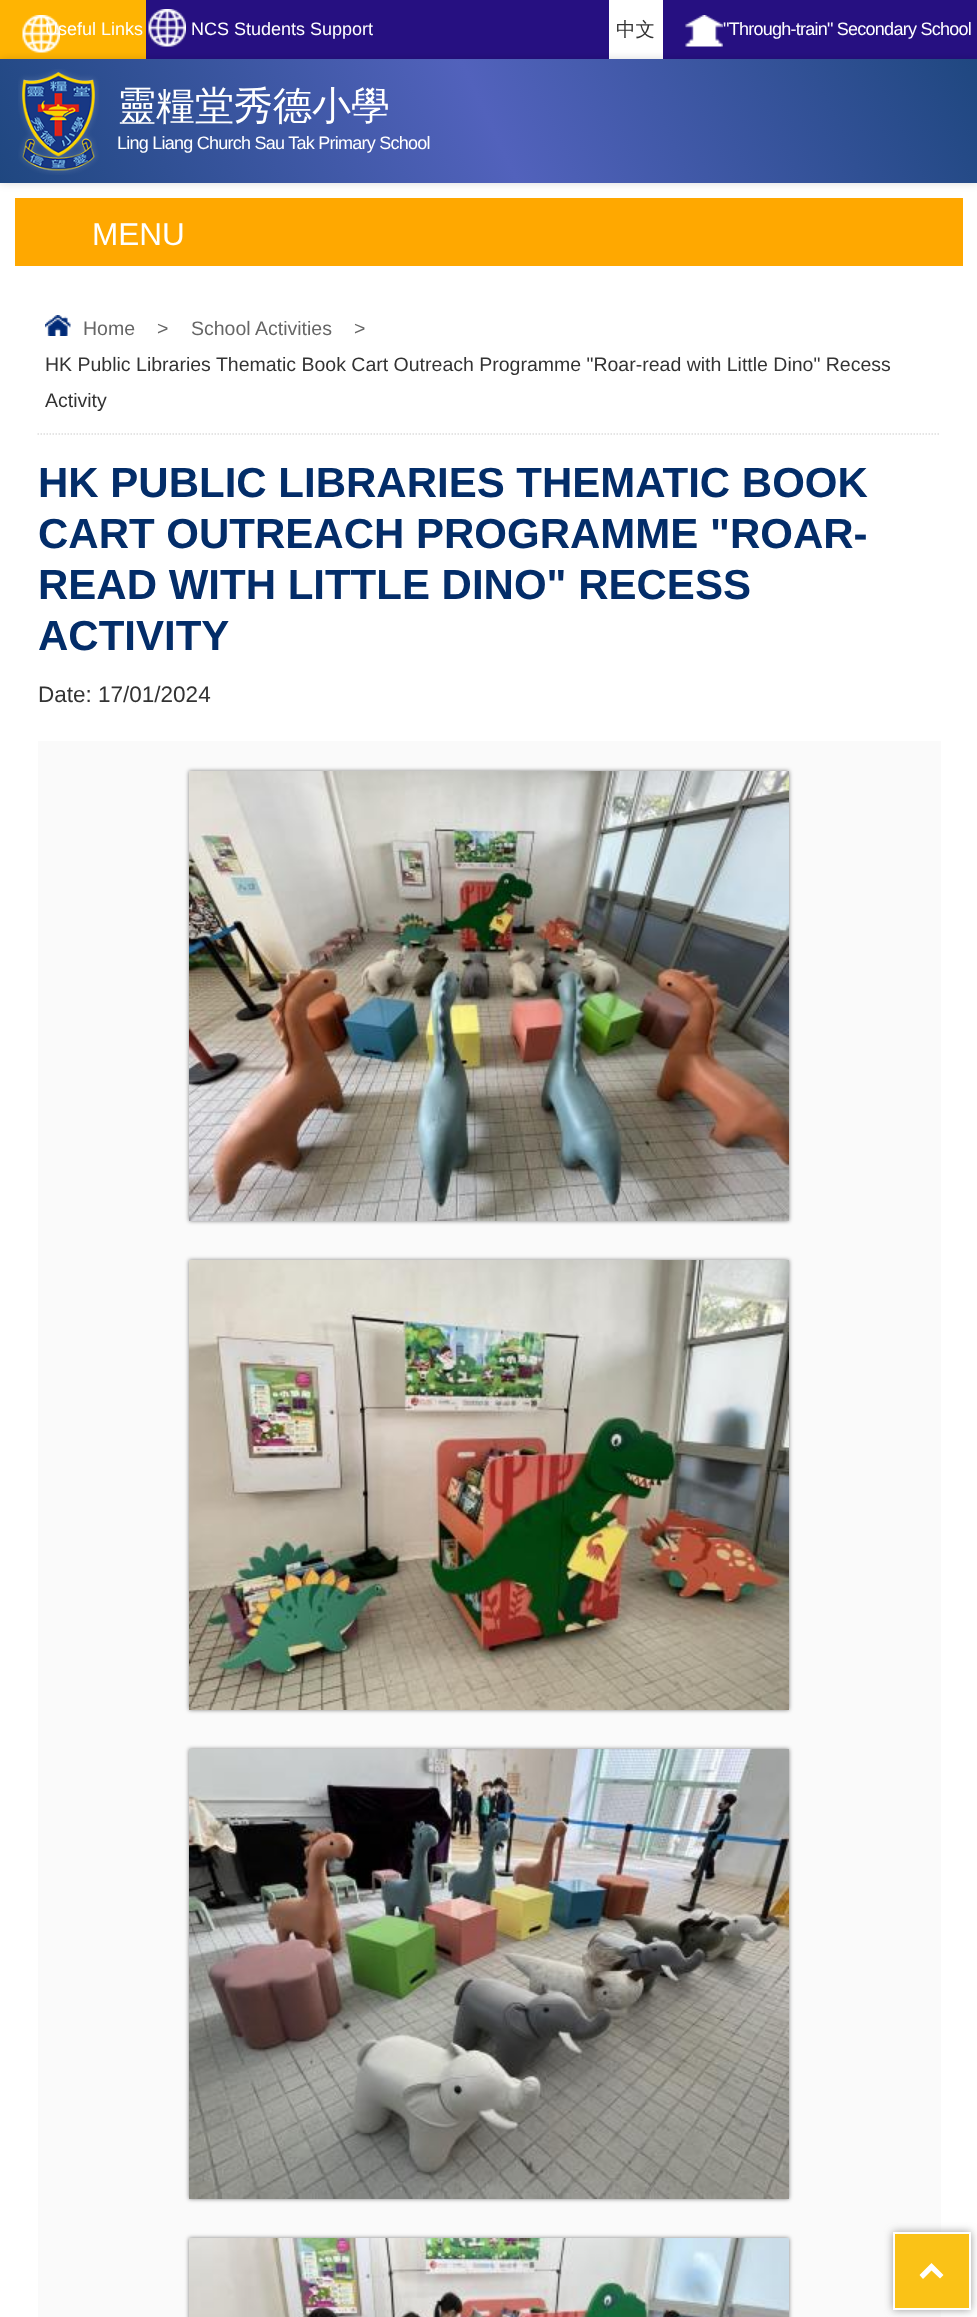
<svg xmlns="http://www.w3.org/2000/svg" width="977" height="2317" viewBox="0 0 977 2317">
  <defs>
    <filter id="blur1" x="-50%" y="-200%" width="200%" height="500%"><feGaussianBlur stdDeviation="4.5"/></filter>
    <linearGradient id="g1" gradientUnits="userSpaceOnUse" x1="63" y1="319" x2="915" y2="-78"><stop offset="0" stop-color="#1f4780"/><stop offset="0.5" stop-color="#5262bc"/><stop offset="1" stop-color="#1f4780"/></linearGradient>
    <filter id="blur2" x="-50%" y="-200%" width="200%" height="500%"><feGaussianBlur stdDeviation="2"/></filter>
    <filter id="blur3" x="-50%" y="-200%" width="200%" height="500%"><feGaussianBlur stdDeviation="4"/></filter>
  </defs>
  <rect width="100%" height="100%" fill="#ffffff"/>
  <rect x="146" y="0" width="831" height="59" fill="#261081"/>
  <rect x="0" y="0" width="146" height="59" fill="#ffb402"/>
  <image x="22" y="15" width="38" height="38" href="img1.png"/>
  <text x="45" y="35" font-family="Liberation Sans" font-size="18" fill="#ffffff">Useful Links</text>
  <image x="148" y="9" width="38" height="38" href="img2.png"/>
  <text x="191" y="35" font-family="Liberation Sans" font-size="18" fill="#ffffff">NCS Students Support</text>
  <rect x="609" y="0" width="54" height="59" fill="#ffffff"/>
  <text x="616" y="36" font-family="WenQuanYi Zen Hei" font-size="19.5" font-weight="500" fill="#333333">中文</text>
  <image x="685" y="15" width="38" height="32" href="img3.png"/>
  <text x="723" y="35" font-family="Liberation Sans" font-size="18" letter-spacing="-0.75" fill="#ffffff">"Through-train" Secondary School</text>
  <rect x="0" y="59" width="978" height="124" fill="#000000" fill-opacity="0.15" filter="url(#blur1)"/>
  <rect x="0" y="59" width="977" height="124" fill="url(#g1)"/>
  <image x="18" y="69" width="81" height="106" href="img4.png"/>
  <text x="117" y="119" font-family="WenQuanYi Zen Hei" font-size="39" font-weight="500" fill="#ffffff">靈糧堂秀德小學</text>
  <text x="117" y="149" font-family="Liberation Sans" font-size="18" letter-spacing="-0.75" fill="#ffffff">Ling Liang Church Sau Tak Primary School</text>
  <rect x="15" y="198" width="948" height="68" fill="#ffa800"/>
  <text x="92" y="245" font-family="Liberation Sans" font-size="31.5" fill="#ffffff">MENU</text>
  <path d="M37.5 434H940.5" fill="none" stroke="#dddddd" stroke-width="1.5" stroke-dasharray="1.5 1.5"/>
  <image x="45" y="315" width="26" height="21" href="img5.png"/>
  <text x="83" y="335" font-family="Liberation Sans" font-size="19.5" fill="#666666">Home</text>
  <text x="157" y="335" font-family="Liberation Sans" font-size="19.5" fill="#666666">&gt;</text>
  <text x="191" y="335" font-family="Liberation Sans" font-size="19.5" fill="#666666">School Activities</text>
  <text x="354" y="335" font-family="Liberation Sans" font-size="19.5" fill="#666666">&gt;</text>
  <text x="45" y="371" font-family="Liberation Sans" font-size="19.5" fill="#333333">HK Public Libraries Thematic Book Cart Outreach Programme "Roar-read with Little Dino" Recess</text>
  <text x="45" y="407" font-family="Liberation Sans" font-size="19.5" fill="#333333">Activity</text>
  <text x="38" y="497" font-family="Liberation Sans" font-size="42" font-weight="bold" fill="#032d69">HK PUBLIC LIBRARIES THEMATIC BOOK</text>
  <text x="38" y="548" font-family="Liberation Sans" font-size="42" font-weight="bold" fill="#032d69">CART OUTREACH PROGRAMME "ROAR-</text>
  <text x="38" y="599" font-family="Liberation Sans" font-size="42" font-weight="bold" fill="#032d69">READ WITH LITTLE DINO" RECESS</text>
  <text x="38" y="650" font-family="Liberation Sans" font-size="42" font-weight="bold" fill="#032d69">ACTIVITY</text>
  <text x="38" y="702" font-family="Liberation Sans" font-size="22.5" fill="#333333">Date: 17/01/2024</text>
  <rect x="38" y="741" width="903" height="1576" fill="#fafafa"/>
  <rect x="189" y="771" width="600" height="450" fill="#000000" fill-opacity="0.5" filter="url(#blur2)"/>
  <image x="189" y="771" width="600" height="450" href="img6.png"/>
  <rect x="189" y="1260" width="600" height="450" fill="#000000" fill-opacity="0.5" filter="url(#blur2)"/>
  <image x="189" y="1260" width="600" height="450" href="img7.png"/>
  <rect x="189" y="1749" width="600" height="450" fill="#000000" fill-opacity="0.5" filter="url(#blur2)"/>
  <image x="189" y="1749" width="600" height="450" href="img8.png"/>
  <rect x="189" y="2238" width="600" height="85" fill="#000000" fill-opacity="0.5" filter="url(#blur2)"/>
  <image x="189" y="2238" width="600" height="79" href="img9.png"/>
  <rect x="893" y="2232" width="78" height="78" fill="#999999" filter="url(#blur3)"/>
  <rect x="895" y="2234" width="74" height="74" fill="#fac217"/>
  <path d="M931.5 2263L943.5 2275L940 2278.5L931.5 2270.5L923 2279L919.5 2275Z" fill="#ffffff"/>
  <rect x="894" y="2233" width="76" height="76" fill="none" stroke="#ffffff" stroke-width="2"/>
</svg>
